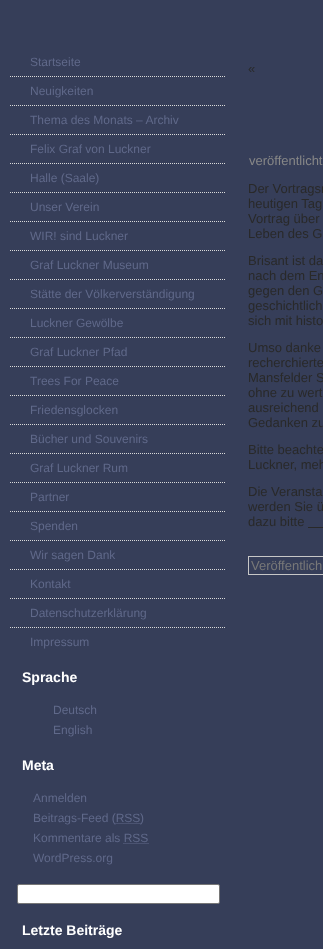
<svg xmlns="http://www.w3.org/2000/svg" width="323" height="949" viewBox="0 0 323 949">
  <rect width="100%" height="100%" fill="#363e59"/>
  <text x="30" y="66" font-family="Liberation Sans" font-size="12" fill="#60698a">Startseite</text>
  <path d="M10 76.5H225" fill="none" stroke="#d9d9d9" stroke-dasharray="1 1"/>
  <text x="30" y="95" font-family="Liberation Sans" font-size="12" fill="#60698a">Neuigkeiten</text>
  <path d="M10 105.5H225" fill="none" stroke="#d9d9d9" stroke-dasharray="1 1"/>
  <text x="30" y="124" font-family="Liberation Sans" font-size="12" fill="#60698a">Thema des Monats – Archiv</text>
  <path d="M10 134.5H225" fill="none" stroke="#d9d9d9" stroke-dasharray="1 1"/>
  <text x="30" y="153" font-family="Liberation Sans" font-size="12" fill="#60698a">Felix Graf von Luckner</text>
  <path d="M10 163.5H225" fill="none" stroke="#d9d9d9" stroke-dasharray="1 1"/>
  <text x="30" y="182" font-family="Liberation Sans" font-size="12" fill="#60698a">Halle (Saale)</text>
  <path d="M10 192.5H225" fill="none" stroke="#d9d9d9" stroke-dasharray="1 1"/>
  <text x="30" y="211" font-family="Liberation Sans" font-size="12" fill="#60698a">Unser Verein</text>
  <path d="M10 221.5H225" fill="none" stroke="#d9d9d9" stroke-dasharray="1 1"/>
  <text x="30" y="240" font-family="Liberation Sans" font-size="12" fill="#60698a">WIR! sind Luckner</text>
  <path d="M10 250.5H225" fill="none" stroke="#d9d9d9" stroke-dasharray="1 1"/>
  <text x="30" y="269" font-family="Liberation Sans" font-size="12" fill="#60698a">Graf Luckner Museum</text>
  <path d="M10 279.5H225" fill="none" stroke="#d9d9d9" stroke-dasharray="1 1"/>
  <text x="30" y="298" font-family="Liberation Sans" font-size="12" fill="#60698a">Stätte der Völkerverständigung</text>
  <path d="M10 308.5H225" fill="none" stroke="#d9d9d9" stroke-dasharray="1 1"/>
  <text x="30" y="327" font-family="Liberation Sans" font-size="12" fill="#60698a">Luckner Gewölbe</text>
  <path d="M10 337.5H225" fill="none" stroke="#d9d9d9" stroke-dasharray="1 1"/>
  <text x="30" y="356" font-family="Liberation Sans" font-size="12" fill="#60698a">Graf Luckner Pfad</text>
  <path d="M10 366.5H225" fill="none" stroke="#d9d9d9" stroke-dasharray="1 1"/>
  <text x="30" y="385" font-family="Liberation Sans" font-size="12" fill="#60698a">Trees For Peace</text>
  <path d="M10 395.5H225" fill="none" stroke="#d9d9d9" stroke-dasharray="1 1"/>
  <text x="30" y="414" font-family="Liberation Sans" font-size="12" fill="#60698a">Friedensglocken</text>
  <path d="M10 424.5H225" fill="none" stroke="#d9d9d9" stroke-dasharray="1 1"/>
  <text x="30" y="443" font-family="Liberation Sans" font-size="12" fill="#60698a">Bücher und Souvenirs</text>
  <path d="M10 453.5H225" fill="none" stroke="#d9d9d9" stroke-dasharray="1 1"/>
  <text x="30" y="472" font-family="Liberation Sans" font-size="12" fill="#60698a">Graf Luckner Rum</text>
  <path d="M10 482.5H225" fill="none" stroke="#d9d9d9" stroke-dasharray="1 1"/>
  <text x="30" y="501" font-family="Liberation Sans" font-size="12" fill="#60698a">Partner</text>
  <path d="M10 511.5H225" fill="none" stroke="#d9d9d9" stroke-dasharray="1 1"/>
  <text x="30" y="530" font-family="Liberation Sans" font-size="12" fill="#60698a">Spenden</text>
  <path d="M10 540.5H225" fill="none" stroke="#d9d9d9" stroke-dasharray="1 1"/>
  <text x="30" y="559" font-family="Liberation Sans" font-size="12" fill="#60698a">Wir sagen Dank</text>
  <path d="M10 569.5H225" fill="none" stroke="#d9d9d9" stroke-dasharray="1 1"/>
  <text x="30" y="588" font-family="Liberation Sans" font-size="12" fill="#60698a">Kontakt</text>
  <path d="M10 598.5H225" fill="none" stroke="#d9d9d9" stroke-dasharray="1 1"/>
  <text x="30" y="617" font-family="Liberation Sans" font-size="12" fill="#60698a">Datenschutzerklärung</text>
  <path d="M10 627.5H225" fill="none" stroke="#d9d9d9" stroke-dasharray="1 1"/>
  <text x="30" y="646" font-family="Liberation Sans" font-size="12" fill="#60698a">Impressum</text>
  <text x="22" y="682" font-family="Liberation Sans" font-size="14" font-weight="bold" fill="#ffffff">Sprache</text>
  <text x="53" y="714" font-family="Liberation Sans" font-size="12" fill="#60698a">Deutsch</text>
  <text x="53" y="734" font-family="Liberation Sans" font-size="12" fill="#60698a">English</text>
  <text x="22" y="770" font-family="Liberation Sans" font-size="14" font-weight="bold" fill="#ffffff">Meta</text>
  <text x="33" y="802" font-family="Liberation Sans" font-size="12" fill="#60698a">Anmelden</text>
  <text x="33" y="822" font-family="Liberation Sans" font-size="12" fill="#60698a">Beitrags-Feed (RSS</text>
  <path d="M115.5 823.5H140.5" fill="none" stroke="#60698a" stroke-dasharray="1 1"/>
  <text x="140" y="822" font-family="Liberation Sans" font-size="12" fill="#60698a">)</text>
  <text x="33" y="842" font-family="Liberation Sans" font-size="12" fill="#60698a">Kommentare als RSS</text>
  <path d="M123.5 843.5H148.5" fill="none" stroke="#60698a" stroke-dasharray="1 1"/>
  <text x="33" y="862" font-family="Liberation Sans" font-size="12" fill="#60698a">WordPress.org</text>
  <rect x="17.5" y="884.5" width="202" height="19" rx="1.5" fill="#ffffff" stroke="#767676"/>
  <text x="22" y="935" font-family="Liberation Sans" font-size="14" font-weight="bold" fill="#ffffff">Letzte Beiträge</text>
  <text x="248" y="73" font-family="Liberation Sans" font-size="13" fill="#292929">«</text>
  <text x="249" y="165" font-family="Liberation Sans" font-size="13" fill="#878787">veröffentlicht</text>
  <text x="248" y="193" font-family="Liberation Sans" font-size="13" fill="#292929">Der Vortragsr</text>
  <text x="248" y="208" font-family="Liberation Sans" font-size="13" fill="#292929">heutigen Tag</text>
  <text x="248" y="223" font-family="Liberation Sans" font-size="13" fill="#292929">Vortrag über</text>
  <text x="248" y="238" font-family="Liberation Sans" font-size="13" fill="#292929">Leben des G</text>
  <text x="248" y="265" font-family="Liberation Sans" font-size="13" fill="#292929">Brisant ist da</text>
  <text x="248" y="280" font-family="Liberation Sans" font-size="13" fill="#292929">nach dem En</text>
  <text x="248" y="295" font-family="Liberation Sans" font-size="13" fill="#292929">gegen den G</text>
  <text x="248" y="310" font-family="Liberation Sans" font-size="13" fill="#292929">geschichtlich</text>
  <text x="248" y="325" font-family="Liberation Sans" font-size="13" fill="#292929">sich mit histo</text>
  <text x="248" y="352" font-family="Liberation Sans" font-size="13" fill="#292929">Umso danke</text>
  <text x="248" y="367" font-family="Liberation Sans" font-size="13" fill="#292929">recherchierte</text>
  <text x="248" y="382" font-family="Liberation Sans" font-size="13" fill="#292929">Mansfelder S</text>
  <text x="248" y="397" font-family="Liberation Sans" font-size="13" fill="#292929">ohne zu wert</text>
  <text x="248" y="412" font-family="Liberation Sans" font-size="13" fill="#292929">ausreichend</text>
  <text x="248" y="427" font-family="Liberation Sans" font-size="13" fill="#292929">Gedanken zu</text>
  <text x="248" y="454" font-family="Liberation Sans" font-size="13" fill="#292929">Bitte beachte</text>
  <text x="248" y="469" font-family="Liberation Sans" font-size="13" fill="#292929">Luckner, meh</text>
  <text x="248" y="496" font-family="Liberation Sans" font-size="13" fill="#292929">Die Veransta</text>
  <text x="248" y="511" font-family="Liberation Sans" font-size="13" fill="#292929">werden Sie ü</text>
  <text x="248" y="526" font-family="Liberation Sans" font-size="13" fill="#292929">dazu bitte</text>
  <rect x="308" y="527" width="15" height="1" fill="#292929"/>
  <rect x="248.5" y="556.5" width="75" height="18" fill="none" stroke="#c7c7c7"/>
  <text x="251" y="570" font-family="Liberation Sans" font-size="13" fill="#787878">Veröffentlich</text>
</svg>
